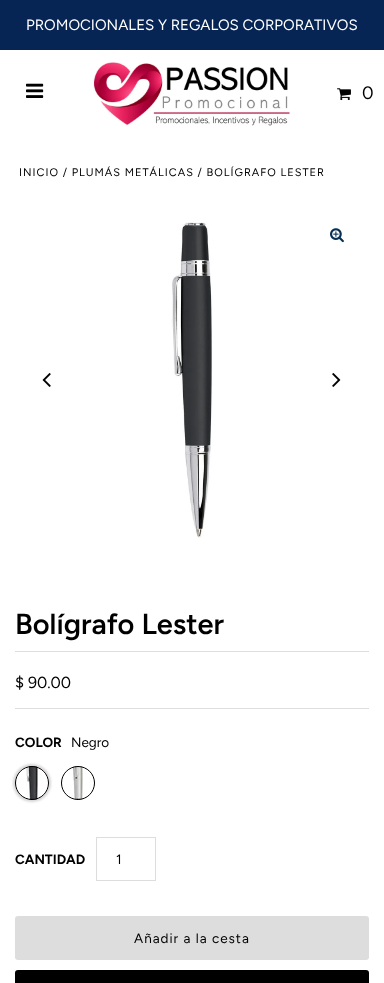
<svg xmlns="http://www.w3.org/2000/svg" width="384" height="983" viewBox="0 0 384 983">
  <defs>
    <filter id="blur1" x="-50%" y="-200%" width="200%" height="500%"><feGaussianBlur stdDeviation="1"/></filter>
  </defs>
  <rect width="100%" height="100%" fill="#ffffff"/>
  <rect x="0" y="0" width="384" height="50" fill="#062454"/>
  <text x="26" y="30" font-family="Figtree" font-size="15" fill="#ffffff">PROMOCIONALES Y REGALOS CORPORATIVOS</text>
  <image x="26" y="83" width="18" height="15" href="img1.png"/>
  <image x="93" y="62" width="197" height="64" href="img2.png"/>
  <image x="337" y="88" width="14" height="13" href="img3.png"/>
  <text x="362" y="99" font-family="Figtree" font-size="18" letter-spacing="1" fill="#000000">0</text>
  <text x="19" y="176" font-family="Figtree" font-size="11" letter-spacing="1" fill="#000000">INICIO / PLUMÁS METÁLICAS / BOLÍGRAFO LESTER</text>
  <image x="42" y="373" width="9" height="14" href="img4.png"/>
  <image x="171" y="222" width="42" height="316" href="img5.png"/>
  <image x="330" y="228" width="14" height="15" href="img6.png"/>
  <image x="332" y="373" width="9" height="14" href="img7.png"/>
  <text x="15" y="634" font-family="Figtree" font-size="29" font-weight="600" fill="#000000">Bolígrafo Lester</text>
  <rect x="15" y="651" width="354" height="1" fill="#dddddd"/>
  <rect x="15" y="708" width="354" height="1" fill="#dddddd"/>
  <text x="15" y="688" font-family="Figtree" font-size="16" fill="#000000">$ 90.00</text>
  <text x="15" y="747" font-family="Figtree" font-size="13.5" font-weight="bold" fill="#000000">COLOR</text>
  <text x="71" y="747" font-family="Figtree" font-size="13.5" fill="#000000">Negro</text>
  <rect x="13" y="764" width="38" height="38" rx="19" fill="#d6d6d6" filter="url(#blur1)"/>
  <image x="15" y="766" width="34" height="34" href="img8.png"/>
  <circle cx="32" cy="783" r="16.5" fill="none" stroke="#000000"/>
  <image x="72" y="766" width="11" height="34" href="img9.png"/>
  <circle cx="78" cy="783" r="16.5" fill="none" stroke="#000000"/>
  <text x="15" y="864" font-family="Figtree" font-size="13.5" font-weight="bold" fill="#000000">CANTIDAD</text>
  <rect x="96.5" y="837.5" width="59" height="43" fill="none" stroke="#dddddd"/>
  <text x="116" y="864" font-family="Figtree" font-size="13.5" fill="#000000">1</text>
  <rect x="15" y="916" width="354" height="44" rx="3" fill="#dddddd"/>
  <text x="134" y="943" font-family="Figtree" font-size="13.5" letter-spacing="1" fill="#000000">Añadir a la cesta</text>
  <rect x="15" y="970" width="354" height="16" rx="3" fill="#000000"/>
</svg>
